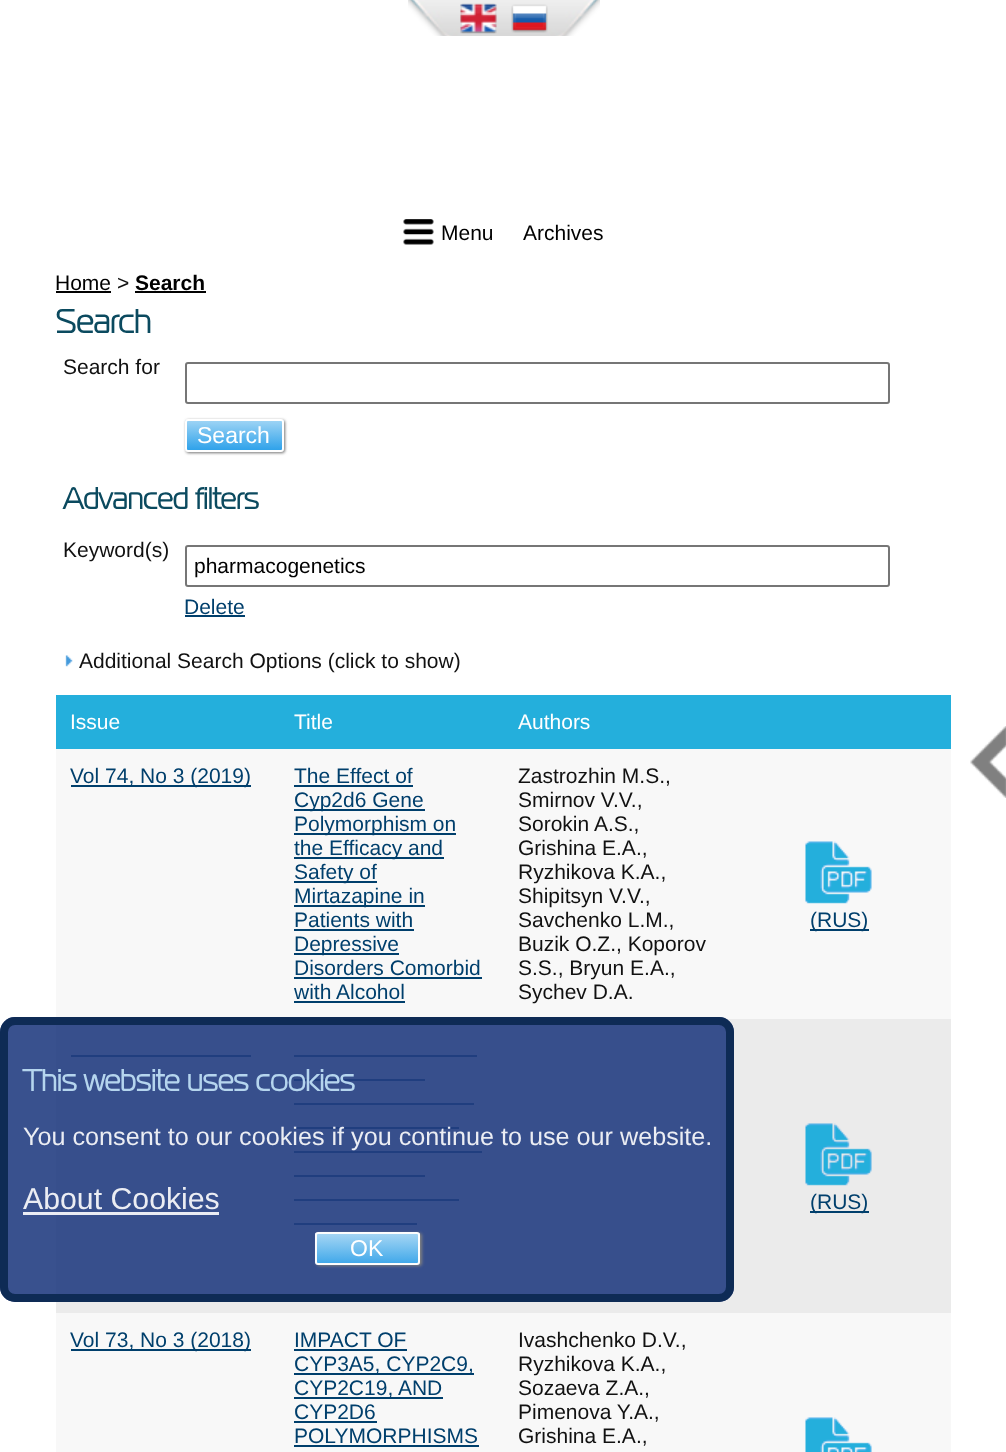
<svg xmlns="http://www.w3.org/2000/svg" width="1006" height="1452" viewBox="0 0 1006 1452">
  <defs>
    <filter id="blur1" x="-50%" y="-200%" width="200%" height="500%"><feGaussianBlur stdDeviation="1.5"/></filter>
    <clipPath id="clip1"><rect x="185" y="419" width="99" height="33" rx="3"/></clipPath>
    <linearGradient id="g1" gradientUnits="userSpaceOnUse" x1="234" y1="420" x2="234" y2="450"><stop offset="0" stop-color="#a0d5f5"/><stop offset="1" stop-color="#2fa2ea"/></linearGradient>
    <clipPath id="clip2"><rect x="315" y="1232" width="105" height="33" rx="3"/></clipPath>
    <linearGradient id="g2" gradientUnits="userSpaceOnUse" x1="368" y1="1233" x2="368" y2="1263"><stop offset="0" stop-color="#a8d7f4"/><stop offset="1" stop-color="#42a9ea"/></linearGradient>
  </defs>
  <rect width="100%" height="100%" fill="#ffffff"/>
  <image x="408" y="0" width="192" height="36" href="img1.png"/>
  <image x="460" y="3" width="37" height="31" href="img2.png"/>
  <image x="511" y="4" width="37" height="29" href="img3.png"/>
  <image x="403" y="219" width="31" height="26" href="img4.png"/>
  <text x="441" y="240" font-family="Liberation Sans" font-size="21" fill="#000000">Menu</text>
  <text x="523" y="240" font-family="Liberation Sans" font-size="21" fill="#000000">Archives</text>
  <text x="55" y="290" font-family="Liberation Sans" font-size="21" fill="#000000">Home</text>
  <rect x="56" y="291" width="55" height="2" fill="#010101"/>
  <text x="117" y="290" font-family="Liberation Sans" font-size="21" fill="#111111">&gt;</text>
  <text x="135" y="290" font-family="Liberation Sans" font-size="21" font-weight="bold" fill="#000000">Search</text>
  <rect x="135" y="291" width="71" height="2" fill="#010101"/>
  <text x="55" y="333" font-family="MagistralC" font-size="33" font-weight="bold" fill="#0b4a5f">Search</text>
  <text x="63" y="374" font-family="Liberation Sans" font-size="21" fill="#111111">Search for</text>
  <rect x="186" y="363" width="703" height="40" rx="2" fill="none" stroke="#767676" stroke-width="2"/>
  <rect x="186" y="420" width="99" height="33" rx="3" fill="#737373" filter="url(#blur1)"/>
  <g clip-path="url(#clip1)">
    <rect x="185" y="420" width="99" height="30" fill="url(#g1)"/>
  </g>
  <rect x="186" y="420" width="97" height="31" rx="2" fill="none" stroke="#ffffff" stroke-width="2"/>
  <text x="197" y="443" font-family="Liberation Sans" font-size="23" fill="#ffffff">Search</text>
  <text x="63" y="509" font-family="MagistralC" font-size="30" font-weight="bold" fill="#0b4a5f">Advanced filters</text>
  <text x="63" y="557" font-family="Liberation Sans" font-size="21" fill="#111111">Keyword(s)</text>
  <rect x="186" y="546" width="703" height="40" rx="2" fill="none" stroke="#767676" stroke-width="2"/>
  <text x="194" y="573" font-family="Liberation Sans" font-size="21" fill="#000000">pharmacogenetics</text>
  <text x="184" y="614" font-family="Liberation Sans" font-size="21" fill="#003f6c">Delete</text>
  <rect x="185" y="615" width="60" height="2" fill="#003f6c"/>
  <image x="65" y="655" width="8" height="12" href="img5.png"/>
  <text x="79" y="668" font-family="Liberation Sans" font-size="21" fill="#111111">Additional Search Options (click to show)</text>
  <rect x="56" y="695" width="895" height="54" fill="#24afdc"/>
  <text x="70" y="729" font-family="Liberation Sans" font-size="21" fill="#ffffff">Issue</text>
  <text x="294" y="729" font-family="Liberation Sans" font-size="21" fill="#ffffff">Title</text>
  <text x="518" y="729" font-family="Liberation Sans" font-size="21" fill="#ffffff">Authors</text>
  <rect x="56" y="749" width="895" height="270" fill="#f8f8f8"/>
  <rect x="71" y="785" width="180" height="2" fill="#003f6c"/>
  <text x="70" y="783" font-family="Liberation Sans" font-size="21" fill="#003f6c">Vol 74, No 3 (2019)</text>
  <text x="294" y="783" font-family="Liberation Sans" font-size="21" fill="#003f6c">The Effect of</text>
  <rect x="294" y="785" width="119" height="2" fill="#003f6c"/>
  <rect x="294" y="809" width="131" height="2" fill="#003f6c"/>
  <text x="294" y="807" font-family="Liberation Sans" font-size="21" fill="#003f6c">Cyp2d6 Gene</text>
  <rect x="294" y="833" width="162" height="2" fill="#003f6c"/>
  <text x="294" y="831" font-family="Liberation Sans" font-size="21" fill="#003f6c">Polymorphism on</text>
  <rect x="294" y="857" width="150" height="2" fill="#003f6c"/>
  <text x="294" y="855" font-family="Liberation Sans" font-size="21" fill="#003f6c">the Efficacy and</text>
  <rect x="294" y="881" width="83" height="2" fill="#003f6c"/>
  <text x="294" y="879" font-family="Liberation Sans" font-size="21" fill="#003f6c">Safety of</text>
  <rect x="294" y="905" width="131" height="2" fill="#003f6c"/>
  <text x="294" y="903" font-family="Liberation Sans" font-size="21" fill="#003f6c">Mirtazapine in</text>
  <text x="294" y="927" font-family="Liberation Sans" font-size="21" fill="#003f6c">Patients with</text>
  <rect x="294" y="929" width="120" height="2" fill="#003f6c"/>
  <rect x="294" y="953" width="105" height="2" fill="#003f6c"/>
  <text x="294" y="951" font-family="Liberation Sans" font-size="21" fill="#003f6c">Depressive</text>
  <text x="294" y="975" font-family="Liberation Sans" font-size="21" fill="#003f6c">Disorders Comorbid</text>
  <rect x="294" y="977" width="188" height="2" fill="#003f6c"/>
  <text x="294" y="999" font-family="Liberation Sans" font-size="21" fill="#003f6c">with Alcohol</text>
  <rect x="294" y="1001" width="111" height="2" fill="#003f6c"/>
  <text x="518" y="783" font-family="Liberation Sans" font-size="21" fill="#111111">Zastrozhin M.S.,</text>
  <text x="518" y="807" font-family="Liberation Sans" font-size="21" fill="#111111">Smirnov V.V.,</text>
  <text x="518" y="831" font-family="Liberation Sans" font-size="21" fill="#111111">Sorokin A.S.,</text>
  <text x="518" y="855" font-family="Liberation Sans" font-size="21" fill="#111111">Grishina E.A.,</text>
  <text x="518" y="879" font-family="Liberation Sans" font-size="21" fill="#111111">Ryzhikova K.A.,</text>
  <text x="518" y="903" font-family="Liberation Sans" font-size="21" fill="#111111">Shipitsyn V.V.,</text>
  <text x="518" y="927" font-family="Liberation Sans" font-size="21" fill="#111111">Savchenko L.M.,</text>
  <text x="518" y="951" font-family="Liberation Sans" font-size="21" fill="#111111">Buzik O.Z., Koporov</text>
  <text x="518" y="975" font-family="Liberation Sans" font-size="21" fill="#111111">S.S., Bryun E.A.,</text>
  <text x="518" y="999" font-family="Liberation Sans" font-size="21" fill="#111111">Sychev D.A.</text>
  <image x="805" y="841" width="67" height="63" href="img6.png"/>
  <rect x="810" y="929" width="59" height="2" fill="#003f6c"/>
  <text x="810" y="927" font-family="Liberation Sans" font-size="21" fill="#003f6c">(RUS)</text>
  <rect x="56" y="1019" width="895" height="294" fill="#ebebeb"/>
  <rect x="71" y="1055" width="180" height="2" fill="#003f6c"/>
  <rect x="294" y="1055" width="183" height="2" fill="#003f6c"/>
  <rect x="294" y="1079" width="131" height="2" fill="#003f6c"/>
  <rect x="294" y="1103" width="180" height="2" fill="#003f6c"/>
  <rect x="294" y="1127" width="165" height="2" fill="#003f6c"/>
  <rect x="294" y="1151" width="188" height="2" fill="#003f6c"/>
  <rect x="294" y="1175" width="131" height="2" fill="#003f6c"/>
  <rect x="294" y="1199" width="165" height="2" fill="#003f6c"/>
  <rect x="294" y="1223" width="123" height="2" fill="#003f6c"/>
  <image x="805" y="1123" width="67" height="63" href="img7.png"/>
  <rect x="810" y="1211" width="59" height="2" fill="#003f6c"/>
  <text x="810" y="1209" font-family="Liberation Sans" font-size="21" fill="#003f6c">(RUS)</text>
  <rect x="56" y="1313" width="895" height="139" fill="#f8f8f8"/>
  <rect x="71" y="1349" width="180" height="2" fill="#003f6c"/>
  <text x="70" y="1347" font-family="Liberation Sans" font-size="21" fill="#003f6c">Vol 73, No 3 (2018)</text>
  <text x="294" y="1347" font-family="Liberation Sans" font-size="21" fill="#003f6c">IMPACT OF</text>
  <rect x="294" y="1349" width="113" height="2" fill="#003f6c"/>
  <rect x="294" y="1373" width="180" height="2" fill="#003f6c"/>
  <text x="294" y="1371" font-family="Liberation Sans" font-size="21" fill="#003f6c">CYP3A5, CYP2C9,</text>
  <rect x="294" y="1397" width="149" height="2" fill="#003f6c"/>
  <text x="294" y="1395" font-family="Liberation Sans" font-size="21" fill="#003f6c">CYP2C19, AND</text>
  <text x="294" y="1419" font-family="Liberation Sans" font-size="21" fill="#003f6c">CYP2D6</text>
  <rect x="294" y="1421" width="83" height="2" fill="#003f6c"/>
  <text x="294" y="1443" font-family="Liberation Sans" font-size="21" fill="#003f6c">POLYMORPHISMS</text>
  <rect x="294" y="1445" width="185" height="2" fill="#003f6c"/>
  <text x="518" y="1347" font-family="Liberation Sans" font-size="21" fill="#111111">Ivashchenko D.V.,</text>
  <text x="518" y="1371" font-family="Liberation Sans" font-size="21" fill="#111111">Ryzhikova K.A.,</text>
  <text x="518" y="1395" font-family="Liberation Sans" font-size="21" fill="#111111">Sozaeva Z.A.,</text>
  <text x="518" y="1419" font-family="Liberation Sans" font-size="21" fill="#111111">Pimenova Y.A.,</text>
  <text x="518" y="1443" font-family="Liberation Sans" font-size="21" fill="#111111">Grishina E.A.,</text>
  <image x="805" y="1417" width="67" height="35" href="img8.png"/>
  <image x="970" y="726" width="36" height="72" href="img9.png"/>
  <rect x="0" y="1017" width="734" height="285" rx="15" fill="#243e82" fill-opacity="0.9"/>
  <rect x="4" y="1021" width="726" height="277" rx="11" fill="none" stroke="#0a274f" stroke-opacity="0.9" stroke-width="8"/>
  <text x="23" y="1091" font-family="MagistralC" font-size="30.25" font-weight="bold" fill="#b5d5ee">This website uses cookies</text>
  <text x="23" y="1145" font-family="Liberation Sans" font-size="25.2" fill="#ebedf3">You consent to our cookies if you continue to use our website.</text>
  <text x="23" y="1209" font-family="Liberation Sans" font-size="30.25" fill="#ebedf3">About Cookies</text>
  <rect x="23" y="1212" width="196" height="3" fill="#ebedf4"/>
  <rect x="317" y="1233" width="105" height="33" rx="3" fill="#7f7f7f" filter="url(#blur1)"/>
  <g clip-path="url(#clip2)">
    <rect x="315" y="1233" width="105" height="30" fill="url(#g2)"/>
  </g>
  <rect x="316" y="1233" width="103" height="31" rx="2" fill="none" stroke="#fdfdfd" stroke-width="2"/>
  <text x="350" y="1256" font-family="Liberation Sans" font-size="23" fill="#ffffff">OK</text>
</svg>
